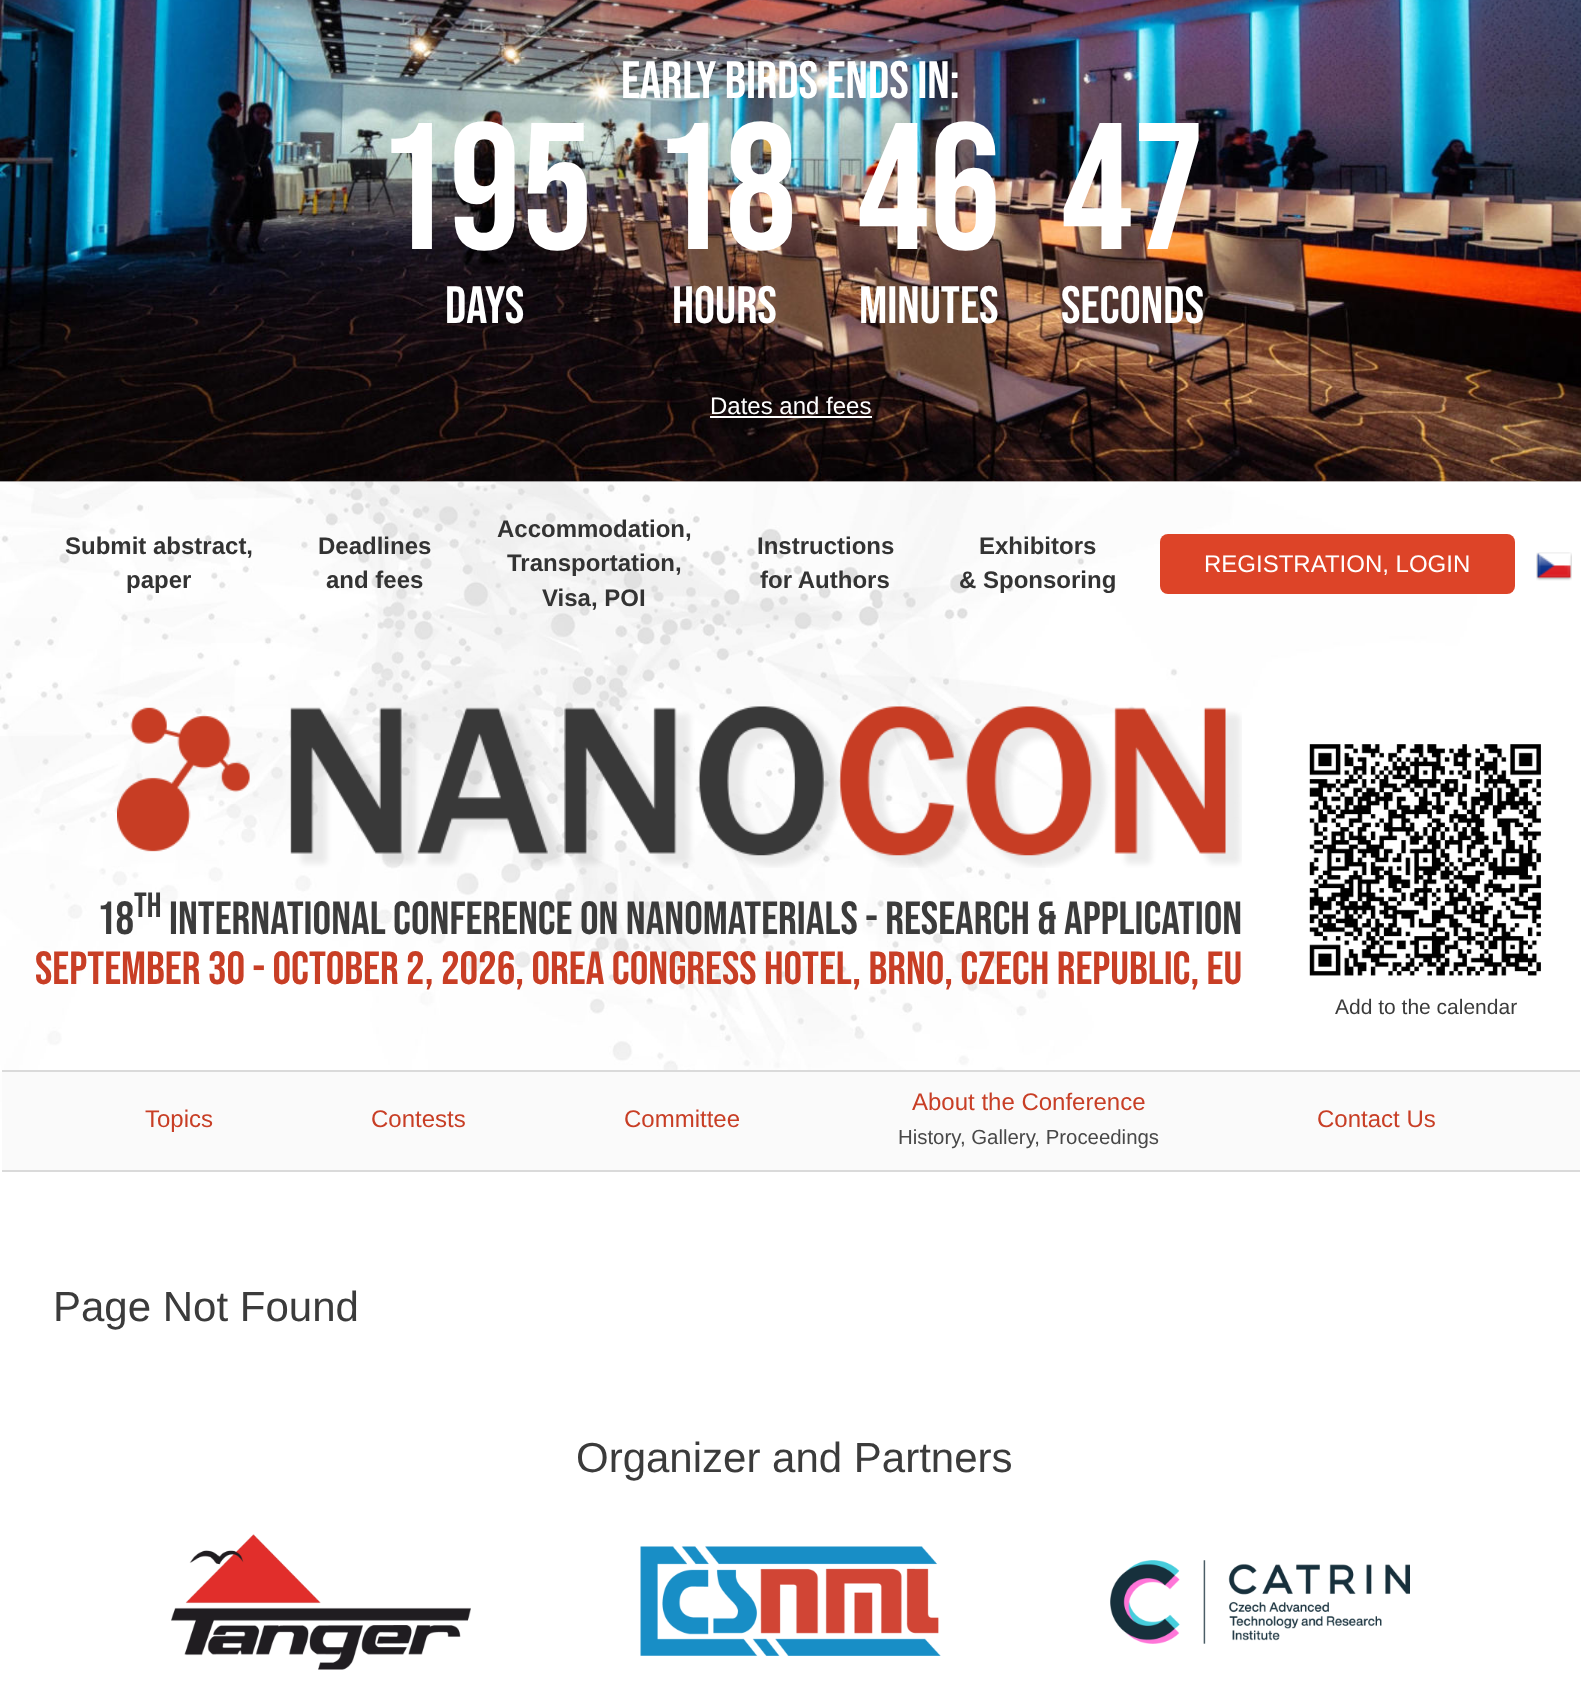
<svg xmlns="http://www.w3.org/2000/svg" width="1581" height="1695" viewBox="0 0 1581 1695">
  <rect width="100%" height="100%" fill="#ffffff"/>
  <image x="0" y="481" width="1581" height="1" href="img1.png"/>
  <image x="0" y="0" width="1581" height="482" href="img2.png"/>
  <text x="621" y="98" font-family="Bebas Neue" font-size="52.5" fill="#ffffff">EARLY BIRDS ENDS IN:</text>
  <text x="377" y="249" font-family="Bebas Neue" font-size="180" fill="#ffffff">195</text>
  <text x="445" y="323" font-family="Bebas Neue" font-size="52.5" fill="#ffffff">DAYS</text>
  <text x="653" y="249" font-family="Bebas Neue" font-size="180" fill="#ffffff">18</text>
  <text x="672" y="323" font-family="Bebas Neue" font-size="52.5" fill="#ffffff">HOURS</text>
  <text x="857" y="249" font-family="Bebas Neue" font-size="180" fill="#ffffff">46</text>
  <text x="859" y="323" font-family="Bebas Neue" font-size="52.5" fill="#ffffff">MINUTES</text>
  <text x="1061" y="249" font-family="Bebas Neue" font-size="180" fill="#ffffff">47</text>
  <text x="1061" y="323" font-family="Bebas Neue" font-size="52.5" fill="#ffffff">SECONDS</text>
  <text x="710" y="414" font-family="Liberation Sans" font-size="24" fill="#ffffff">Dates and fees</text>
  <rect x="710" y="416" width="162" height="2" fill="#ffffff"/>
  <image x="0" y="481" width="1581" height="638" href="img3.png"/>
  <text x="65" y="554" font-family="Liberation Sans" font-size="24" font-weight="bold" fill="#333333">Submit abstract,</text>
  <text x="126" y="588" font-family="Liberation Sans" font-size="24" font-weight="bold" fill="#333333">paper</text>
  <text x="318" y="554" font-family="Liberation Sans" font-size="24" font-weight="bold" fill="#333333">Deadlines</text>
  <text x="326" y="588" font-family="Liberation Sans" font-size="24" font-weight="bold" fill="#333333">and fees</text>
  <text x="497" y="537" font-family="Liberation Sans" font-size="24" font-weight="bold" fill="#333333">Accommodation,</text>
  <text x="507" y="571" font-family="Liberation Sans" font-size="24" font-weight="bold" fill="#333333">Transportation,</text>
  <text x="542" y="606" font-family="Liberation Sans" font-size="24" font-weight="bold" fill="#333333">Visa, POI</text>
  <text x="757" y="554" font-family="Liberation Sans" font-size="24" font-weight="bold" fill="#333333">Instructions</text>
  <text x="760" y="588" font-family="Liberation Sans" font-size="24" font-weight="bold" fill="#333333">for Authors</text>
  <text x="979" y="554" font-family="Liberation Sans" font-size="24" font-weight="bold" fill="#333333">Exhibitors</text>
  <text x="959" y="588" font-family="Liberation Sans" font-size="24" font-weight="bold" fill="#333333">&amp; Sponsoring</text>
  <rect x="1160" y="534" width="355" height="60" rx="8" fill="#dd4428"/>
  <text x="1204" y="572" font-family="Liberation Sans" font-size="24" fill="#ffffff">REGISTRATION, LOGIN</text>
  <image x="1536" y="552" width="36" height="29" href="img4.png"/>
  <image x="117" y="706" width="1125" height="162" href="img5.png"/>
  <text x="97" y="934" font-family="Bebas Neue" font-size="46.5" fill="#3b3b3b">18</text>
  <text x="134" y="917" font-family="Bebas Neue" font-size="35" fill="#3b3b3b">th</text>
  <text x="169" y="934" font-family="Bebas Neue" font-size="46.5" fill="#3b3b3b">International Conference on Nanomaterials - Research &amp; Application</text>
  <text x="35" y="984" font-family="Bebas Neue" font-size="46.5" fill="#c83e25">September 30 - October 2, 2026, OREA Congress Hotel, Brno, Czech Republic, EU</text>
  <image x="1309" y="744" width="232" height="232" href="img6.png"/>
  <text x="1335" y="1014" font-family="Liberation Sans" font-size="21" fill="#3b3b3b">Add to the calendar</text>
  <rect x="2" y="1072" width="1578" height="98" fill="#fafafa"/>
  <rect x="2" y="1070" width="1578" height="2" fill="#dadada"/>
  <rect x="2" y="1170" width="1578" height="2" fill="#dadada"/>
  <text x="145" y="1127" font-family="Liberation Sans" font-size="24" fill="#c83e25">Topics</text>
  <text x="371" y="1127" font-family="Liberation Sans" font-size="24" fill="#c83e25">Contests</text>
  <text x="624" y="1127" font-family="Liberation Sans" font-size="24" fill="#c83e25">Committee</text>
  <text x="912" y="1110" font-family="Liberation Sans" font-size="24" fill="#c83e25">About the Conference</text>
  <text x="898" y="1144" font-family="Liberation Sans" font-size="20.4" fill="#484848">History, Gallery, Proceedings</text>
  <text x="1317" y="1127" font-family="Liberation Sans" font-size="24" fill="#c83e25">Contact Us</text>
  <text x="53" y="1321" font-family="Liberation Sans" font-size="42" fill="#3b3b3b">Page Not Found</text>
  <text x="576" y="1472" font-family="Liberation Sans" font-size="42" fill="#3b3b3b">Organizer and Partners</text>
  <image x="171" y="1534" width="300" height="136" href="img7.png"/>
  <image x="640" y="1546" width="301" height="110" href="img8.png"/>
  <image x="1110" y="1560" width="300" height="84" href="img9.png"/>
</svg>
